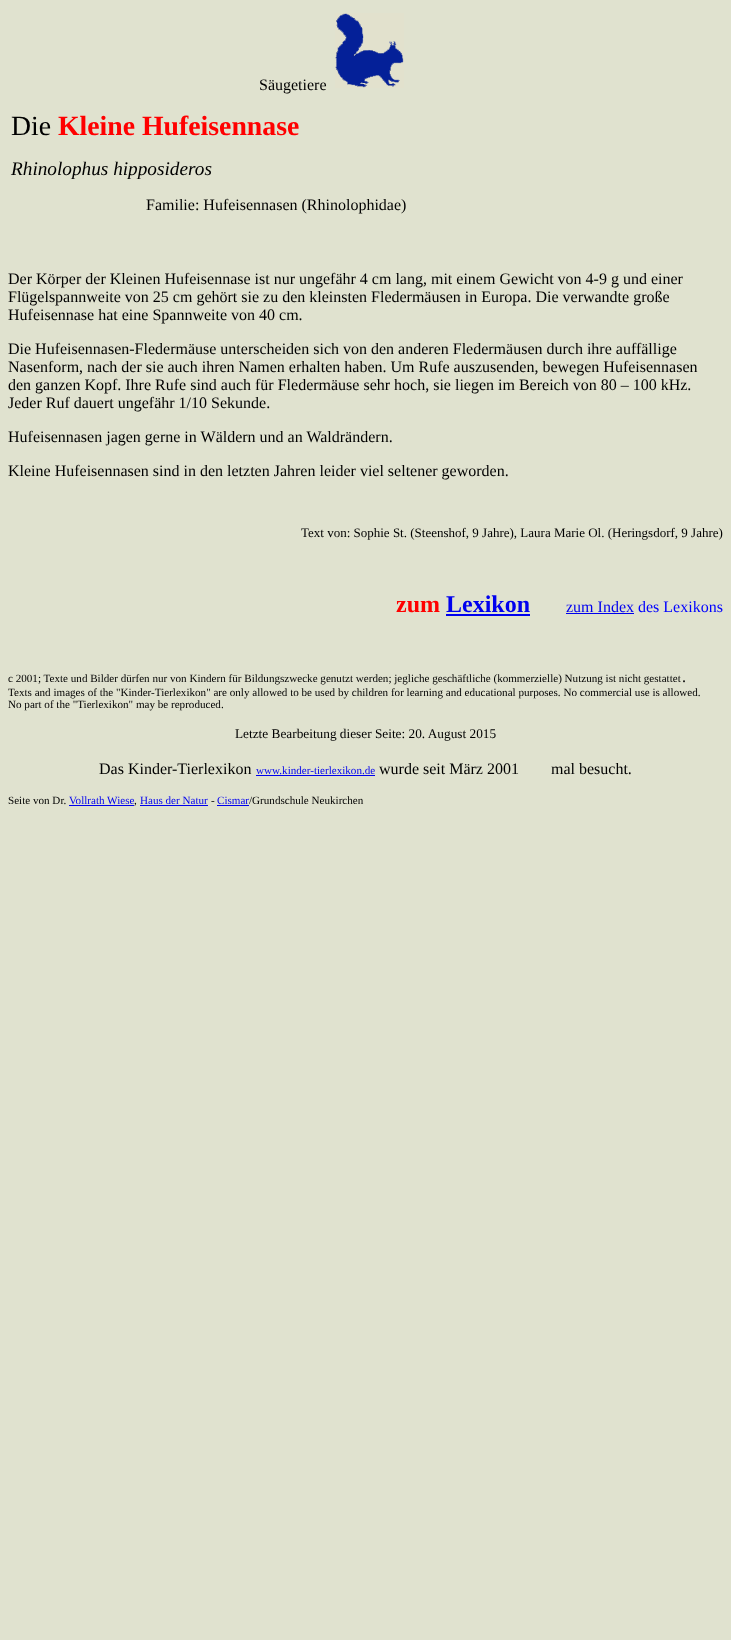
<svg xmlns="http://www.w3.org/2000/svg" width="731" height="1640" viewBox="0 0 731 1640">
  <rect width="100%" height="100%" fill="#e0e2cf"/>
  <text x="259" y="90" font-family="Liberation Serif" font-size="16" fill="#000000">Säugetiere</text>
  <image x="335" y="13" width="69" height="75" href="img1.png"/>
  <text x="11" y="135" font-family="Liberation Serif" font-size="27.75" fill="#000000">Die</text>
  <text x="58" y="135" font-family="Liberation Serif" font-size="27.75" font-weight="bold" fill="#ff0000">Kleine Hufeisennase</text>
  <text x="11" y="175" font-family="Liberation Serif" font-size="19.25" font-style="italic" fill="#000000">Rhinolophus hipposideros</text>
  <text x="146" y="210" font-family="Liberation Serif" font-size="16" fill="#000000">Familie: Hufeisennasen (Rhinolophidae)</text>
  <text x="8" y="284" font-family="Liberation Serif" font-size="16" fill="#000000">Der Körper der Kleinen Hufeisennase ist nur ungefähr 4 cm lang, mit einem Gewicht von 4-9 g und einer</text>
  <text x="8" y="302" font-family="Liberation Serif" font-size="16" fill="#000000">Flügelspannweite von 25 cm gehört sie zu den kleinsten Fledermäusen in Europa. Die verwandte große</text>
  <text x="8" y="320" font-family="Liberation Serif" font-size="16" fill="#000000">Hufeisennase hat eine Spannweite von 40 cm.</text>
  <text x="8" y="354" font-family="Liberation Serif" font-size="16" fill="#000000">Die Hufeisennasen-Fledermäuse unterscheiden sich von den anderen Fledermäusen durch ihre auffällige</text>
  <text x="8" y="372" font-family="Liberation Serif" font-size="16" fill="#000000">Nasenform, nach der sie auch ihren Namen erhalten haben. Um Rufe auszusenden, bewegen Hufeisennasen</text>
  <text x="8" y="390" font-family="Liberation Serif" font-size="16" fill="#000000">den ganzen Kopf. Ihre Rufe sind auch für Fledermäuse sehr hoch, sie liegen im Bereich von 80 – 100 kHz.</text>
  <text x="8" y="408" font-family="Liberation Serif" font-size="16" fill="#000000">Jeder Ruf dauert ungefähr 1/10 Sekunde.</text>
  <text x="8" y="442" font-family="Liberation Serif" font-size="16" fill="#000000">Hufeisennasen jagen gerne in Wäldern und an Waldrändern.</text>
  <text x="8" y="476" font-family="Liberation Serif" font-size="16" fill="#000000">Kleine Hufeisennasen sind in den letzten Jahren leider viel seltener geworden.</text>
  <text x="301" y="537" font-family="Liberation Serif" font-size="13" fill="#000000">Text von: Sophie St. (Steenshof, 9 Jahre), Laura Marie Ol. (Heringsdorf, 9 Jahre)</text>
  <text x="396" y="612" font-family="Liberation Serif" font-size="24" font-weight="bold" fill="#ff0000">zum</text>
  <text x="446" y="612" font-family="Liberation Serif" font-size="24" font-weight="bold" fill="#0000ee">Lexikon</text>
  <rect x="446" y="614" width="84" height="2" fill="#0000ee"/>
  <text x="566" y="612" font-family="Liberation Serif" font-size="16" fill="#0000ee">zum Index</text>
  <rect x="566" y="613" width="68" height="1" fill="#0000ee"/>
  <text x="638" y="612" font-family="Liberation Serif" font-size="16" fill="#0000ff">des Lexikons</text>
  <text x="8" y="682" font-family="Liberation Serif" font-size="11.1" fill="#000000">c 2001; Texte und Bilder dürfen nur von Kindern für Bildungszwecke genutzt werden; jegliche geschäftliche (kommerzielle) Nutzung ist nicht gestattet</text>
  <text x="682" y="682" font-family="Liberation Serif" font-size="16" fill="#000000">.</text>
  <text x="8" y="696" font-family="Liberation Serif" font-size="11.1" fill="#000000">Texts and images of the "Kinder-Tierlexikon" are only allowed to be used by children for learning and educational purposes. No commercial use is allowed.</text>
  <text x="8" y="708" font-family="Liberation Serif" font-size="11.1" fill="#000000">No part of the "Tierlexikon" may be reproduced.</text>
  <text x="235" y="738" font-family="Liberation Serif" font-size="13.3" fill="#000000">Letzte Bearbeitung dieser Seite: 20. August 2015</text>
  <text x="99" y="774" font-family="Liberation Serif" font-size="16" fill="#000000">Das Kinder-Tierlexikon</text>
  <text x="256" y="774" font-family="Liberation Serif" font-size="11.1" fill="#0000ee">www.kinder-tierlexikon.de</text>
  <rect x="256" y="775" width="119" height="1" fill="#0000ee"/>
  <text x="379" y="774" font-family="Liberation Serif" font-size="16" fill="#000000">wurde seit März 2001</text>
  <text x="551" y="774" font-family="Liberation Serif" font-size="16" fill="#000000">mal besucht.</text>
  <text x="8" y="804" font-family="Liberation Serif" font-size="11.1" fill="#000000">Seite von Dr.</text>
  <text x="69" y="804" font-family="Liberation Serif" font-size="11.1" fill="#0000ee">Vollrath Wiese</text>
  <text x="140" y="804" font-family="Liberation Serif" font-size="11.1" fill="#0000ee">Haus der Natur</text>
  <text x="211" y="804" font-family="Liberation Serif" font-size="11.1" fill="#000000">-</text>
  <text x="217" y="804" font-family="Liberation Serif" font-size="11.1" fill="#0000ee">Cismar</text>
  <rect x="217" y="805" width="32" height="1" fill="#0000ee"/>
  <text x="249" y="804" font-family="Liberation Serif" font-size="11.1" fill="#000000">/Grundschule Neukirchen</text>
  <text x="134" y="804" font-family="Liberation Serif" font-size="11.1" fill="#000000">,</text>
  <rect x="69" y="805" width="65" height="1" fill="#0000ee"/>
  <rect x="140" y="805" width="68" height="1" fill="#0000ee"/>
</svg>
